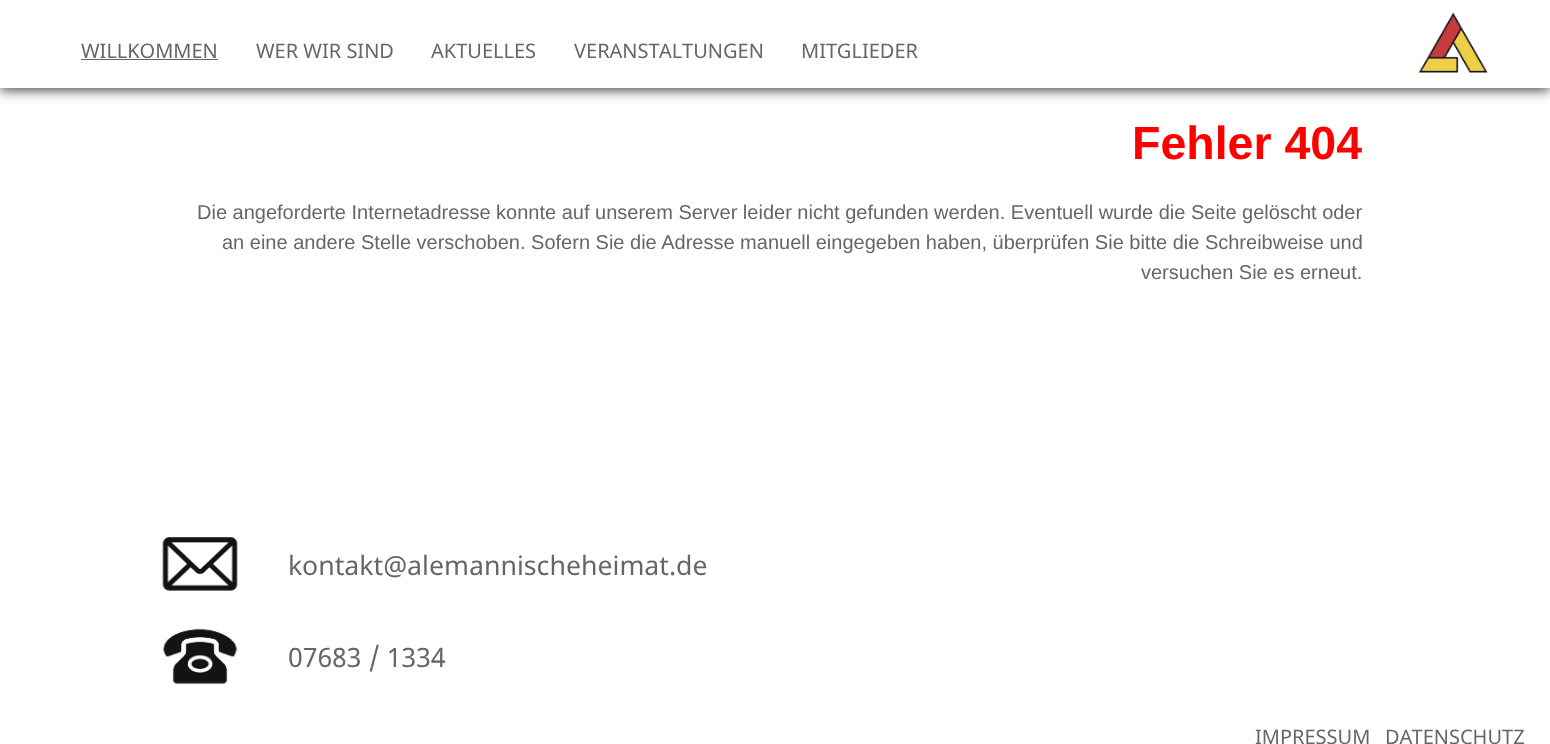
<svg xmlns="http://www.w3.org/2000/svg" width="1550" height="744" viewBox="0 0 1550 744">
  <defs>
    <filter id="blur1" x="-50%" y="-200%" width="200%" height="500%"><feGaussianBlur stdDeviation="6"/></filter>
  </defs>
  <rect width="100%" height="100%" fill="#ffffff"/>
  <rect x="0" y="4" width="1550" height="87" fill="#555555" filter="url(#blur1)"/>
  <rect x="0" y="0" width="1550" height="88" fill="#ffffff"/>
  <text x="81" y="58" font-family="Noto Sans" font-size="20" fill="#666666">WILLKOMMEN</text>
  <rect x="81" y="59" width="137" height="1" fill="#666666"/>
  <text x="256" y="58" font-family="Noto Sans" font-size="20" fill="#666666">WER WIR SIND</text>
  <text x="431" y="58" font-family="Noto Sans" font-size="20" fill="#666666">AKTUELLES</text>
  <text x="574" y="58" font-family="Noto Sans" font-size="20" fill="#666666">VERANSTALTUNGEN</text>
  <text x="801" y="58" font-family="Noto Sans" font-size="20" fill="#666666">MITGLIEDER</text>
  <image x="1418" y="12" width="70" height="61" href="img1.png"/>
  <text x="1132" y="159" font-family="Liberation Sans" font-size="46.5" font-weight="bold" fill="#ff0000">Fehler 404</text>
  <text x="197" y="219" font-family="Liberation Sans" font-size="20" fill="#666666">Die angeforderte Internetadresse konnte auf unserem Server leider nicht gefunden werden. Eventuell wurde die Seite gelöscht oder</text>
  <text x="222" y="249" font-family="Liberation Sans" font-size="20" fill="#666666">an eine andere Stelle verschoben. Sofern Sie die Adresse manuell eingegeben haben, überprüfen Sie bitte die Schreibweise und</text>
  <text x="1141" y="279" font-family="Liberation Sans" font-size="20" fill="#666666">versuchen Sie es erneut.</text>
  <image x="162" y="537" width="76" height="54" href="img2.png"/>
  <text x="288" y="575" font-family="Noto Sans" font-size="26.7" fill="#666666">kontakt@alemannischeheimat.de</text>
  <image x="162" y="628" width="76" height="57" href="img3.png"/>
  <text x="288" y="667" font-family="Noto Sans" font-size="26.7" fill="#666666">07683 / 1334</text>
  <text x="1255" y="744" font-family="Noto Sans" font-size="20" fill="#666666">IMPRESSUM</text>
  <text x="1385" y="744" font-family="Noto Sans" font-size="20" fill="#666666">DATENSCHUTZ</text>
</svg>
